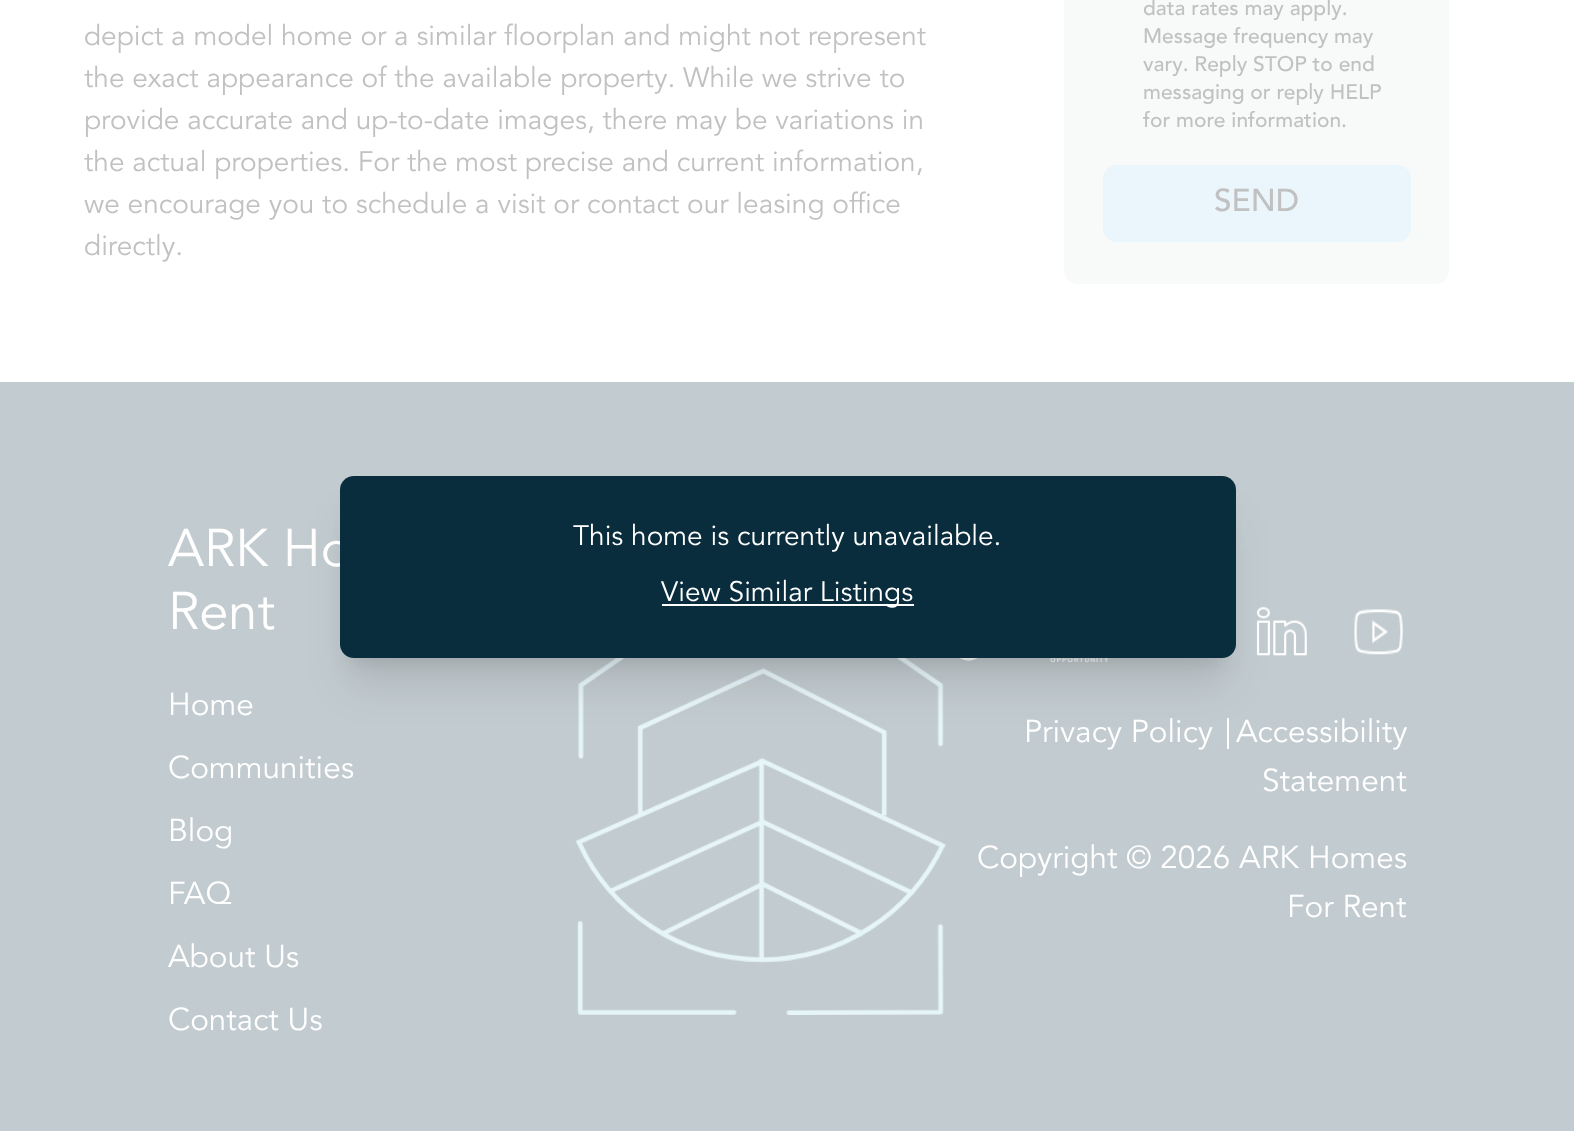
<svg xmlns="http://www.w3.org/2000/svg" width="1574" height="1131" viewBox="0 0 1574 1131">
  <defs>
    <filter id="blur1" x="-50%" y="-200%" width="200%" height="500%"><feGaussianBlur stdDeviation="9"/></filter>
    <filter id="blur2" x="-50%" y="-200%" width="200%" height="500%"><feGaussianBlur stdDeviation="22"/></filter>
  </defs>
  <rect width="100%" height="100%" fill="#ffffff"/>
  <text x="84" y="45" font-family="Avenir" font-size="28" fill="#c1c1c1">depict a model home or a similar floorplan and might not represent</text>
  <text x="84" y="87" font-family="Avenir" font-size="28" fill="#c1c1c1">the exact appearance of the available property. While we strive to</text>
  <text x="84" y="129" font-family="Avenir" font-size="28" fill="#c1c1c1">provide accurate and up-to-date images, there may be variations in</text>
  <text x="84" y="171" font-family="Avenir" font-size="28" fill="#c1c1c1">the actual properties. For the most precise and current information,</text>
  <text x="84" y="213" font-family="Avenir" font-size="28" fill="#c1c1c1">we encourage you to schedule a visit or contact our leasing office</text>
  <text x="84" y="255" font-family="Avenir" font-size="28" fill="#c1c1c1">directly.</text>
  <rect x="1064" y="-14" width="385" height="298" rx="14" fill="#f8fafa"/>
  <text x="1143" y="15" font-family="Avenir" font-size="21" font-weight="500" fill="#c1c1c1">data rates may apply.</text>
  <text x="1143" y="43" font-family="Avenir" font-size="21" font-weight="500" fill="#c1c1c1">Message frequency may</text>
  <text x="1143" y="71" font-family="Avenir" font-size="21" font-weight="500" fill="#c1c1c1">vary. Reply STOP to end</text>
  <text x="1143" y="99" font-family="Avenir" font-size="21" font-weight="500" fill="#c1c1c1">messaging or reply HELP</text>
  <text x="1143" y="127" font-family="Avenir" font-size="21" font-weight="500" fill="#c1c1c1">for more information.</text>
  <rect x="1103" y="165" width="308" height="77" rx="14" fill="#eaf6fb"/>
  <text x="1214" y="211" font-family="Avenir" font-size="31.5" font-weight="500" fill="#c1c1c1">SEND</text>
  <rect x="0" y="382" width="1574" height="749" fill="#c2cbcf"/>
  <image x="575" y="658" width="371" height="357" href="img1.png"/>
  <image x="959" y="658" width="19" height="3" href="img4.png"/>
  <image x="1050" y="658" width="59" height="5" href="img5.png"/>
  <rect x="350" y="501" width="875" height="161" rx="4" fill="#000000" fill-opacity="0.1" filter="url(#blur1)"/>
  <image x="1256" y="607" width="51" height="49" href="img2.png"/>
  <rect x="1227" y="718" width="2" height="31" fill="#ffffff"/>
  <rect x="348" y="520" width="879" height="164" rx="5" fill="#000000" fill-opacity="0.1" filter="url(#blur2)"/>
  <text x="168" y="566" font-family="Avenir" font-size="52.5" fill="#ffffff">ARK Ho</text>
  <rect x="340" y="476" width="896" height="182" rx="14" fill="#092d3d"/>
  <text x="573" y="545" font-family="Avenir" font-size="28" fill="#ffffff">This home is currently unavailable.</text>
  <rect x="662" y="604" width="252" height="2" fill="#ffffff"/>
  <text x="661" y="601" font-family="Avenir" font-size="28" fill="#ffffff">View Similar Listings</text>
  <text x="168" y="629" font-family="Avenir" font-size="52.5" fill="#ffffff">Rent</text>
  <text x="168" y="715" font-family="Avenir" font-size="31.5" fill="#ffffff">Home</text>
  <text x="168" y="778" font-family="Avenir" font-size="31.5" fill="#ffffff">Communities</text>
  <text x="168" y="841" font-family="Avenir" font-size="31.5" fill="#ffffff">Blog</text>
  <text x="168" y="904" font-family="Avenir" font-size="31.5" fill="#ffffff">FAQ</text>
  <text x="168" y="967" font-family="Avenir" font-size="31.5" fill="#ffffff">About Us</text>
  <text x="168" y="1030" font-family="Avenir" font-size="31.5" fill="#ffffff">Contact Us</text>
  <image x="1354" y="609" width="50" height="46" href="img3.png"/>
  <text x="1024" y="742" font-family="Avenir" font-size="31.5" fill="#ffffff">Privacy Policy</text>
  <text x="1236" y="742" font-family="Avenir" font-size="31.5" fill="#ffffff">Accessibility</text>
  <text x="1262" y="791" font-family="Avenir" font-size="31.5" fill="#ffffff">Statement</text>
  <text x="977" y="868" font-family="Avenir" font-size="31.5" fill="#ffffff">Copyright © 2026 ARK Homes</text>
  <text x="1287" y="917" font-family="Avenir" font-size="31.5" fill="#ffffff">For Rent</text>
</svg>
